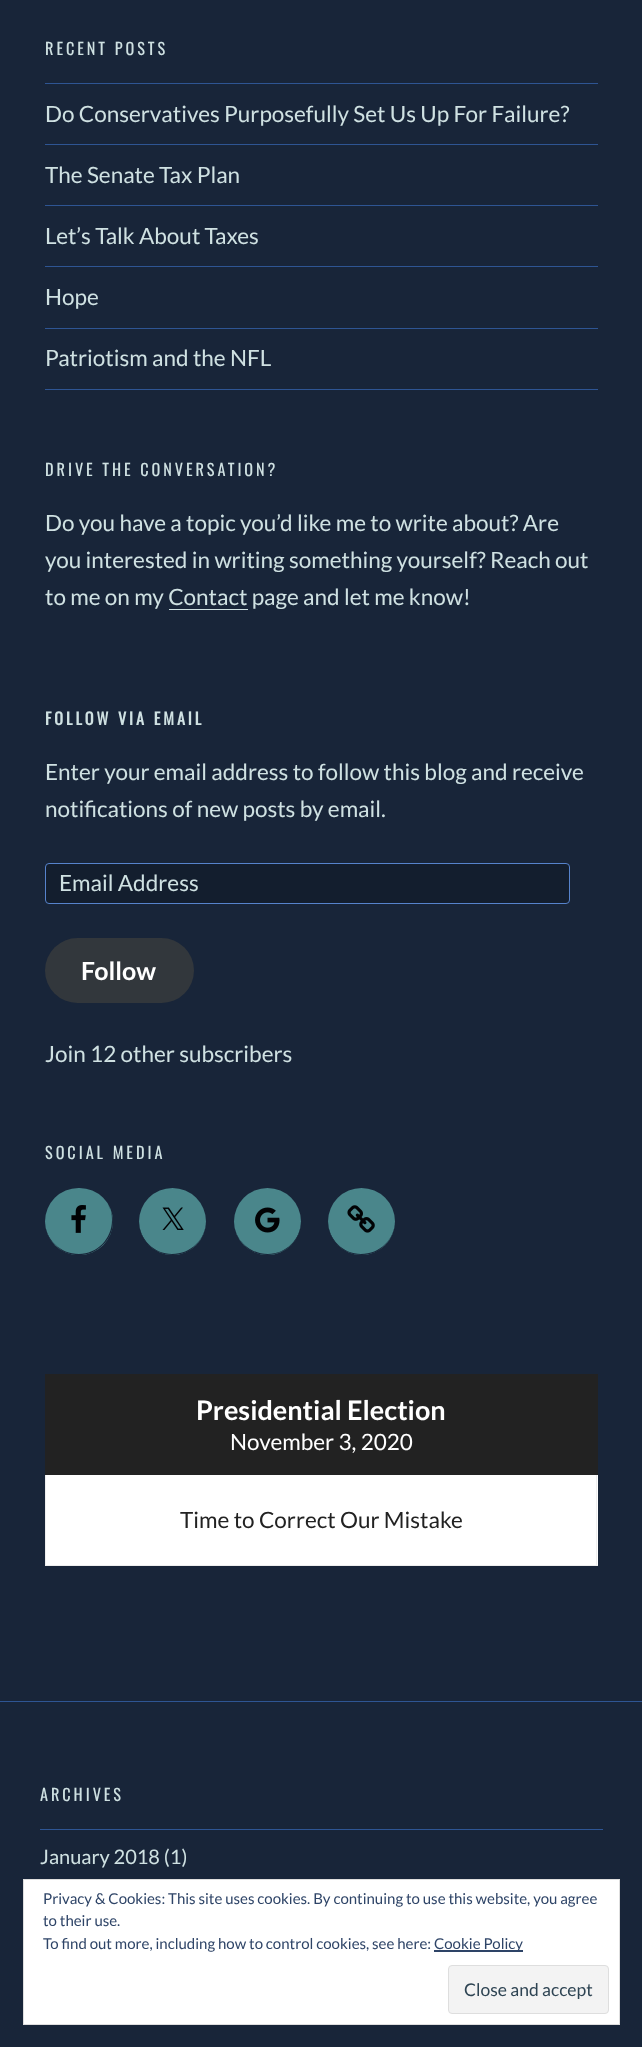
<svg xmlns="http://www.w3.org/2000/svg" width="642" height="2047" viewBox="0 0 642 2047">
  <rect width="100%" height="100%" fill="#182539"/>
  <text x="45" y="55" font-family="Oswald" font-size="16.25" letter-spacing="2.95" fill="#cfe1e2">RECENT POSTS</text>
  <rect x="45" y="83" width="553" height="1" fill="#2e5593"/>
  <rect x="45" y="144" width="553" height="1" fill="#2e5593"/>
  <text x="45" y="122" font-family="Lato" font-size="22.5" fill="#cfe1e2">Do Conservatives Purposefully Set Us Up For Failure?</text>
  <rect x="45" y="205" width="553" height="1" fill="#2e5593"/>
  <text x="45" y="183" font-family="Lato" font-size="22.5" fill="#cfe1e2">The Senate Tax Plan</text>
  <rect x="45" y="266" width="553" height="1" fill="#2e5593"/>
  <text x="45" y="244" font-family="Lato" font-size="22.5" fill="#cfe1e2">Let’s Talk About Taxes</text>
  <rect x="45" y="328" width="553" height="1" fill="#2e5593"/>
  <text x="45" y="305" font-family="Lato" font-size="22.5" fill="#cfe1e2">Hope</text>
  <rect x="45" y="389" width="553" height="1" fill="#2e5593"/>
  <text x="45" y="366" font-family="Lato" font-size="22.5" fill="#cfe1e2">Patriotism and the NFL</text>
  <text x="45" y="476" font-family="Oswald" font-size="16.25" letter-spacing="2.95" fill="#cfe1e2">DRIVE THE CONVERSATION?</text>
  <text x="45" y="531" font-family="Lato" font-size="22.5" fill="#cfe1e2">Do you have a topic you’d like me to write about? Are</text>
  <text x="45" y="568" font-family="Lato" font-size="22.5" fill="#cfe1e2">you interested in writing something yourself? Reach out</text>
  <text x="45" y="605" font-family="Lato" font-size="22.5" fill="#cfe1e2">to me on my Contact page and let me know!</text>
  <rect x="169" y="609" width="79" height="1" fill="#cfe1e2"/>
  <text x="45" y="725" font-family="Oswald" font-size="16.25" font-weight="bold" letter-spacing="2.95" fill="#cfe1e2">FOLLOW VIA EMAIL</text>
  <text x="45" y="780" font-family="Lato" font-size="22.5" fill="#cfe1e2">Enter your email address to follow this blog and receive</text>
  <text x="45" y="817" font-family="Lato" font-size="22.5" fill="#cfe1e2">notifications of new posts by email.</text>
  <rect x="45.5" y="863.5" width="524" height="40" rx="3.5" fill="#131e2e" stroke="#5683cc"/>
  <text x="59" y="891" font-family="Lato" font-size="22.5" fill="#cfe1e2">Email Address</text>
  <rect x="45" y="938" width="149" height="65" rx="32.5" fill="#32373c"/>
  <text x="81" y="980" font-family="Lato" font-size="25" font-weight="bold" fill="#ffffff">Follow</text>
  <text x="45" y="1062" font-family="Lato" font-size="22.5" fill="#cfe1e2">Join 12 other subscribers</text>
  <text x="45" y="1159" font-family="Oswald" font-size="16.25" letter-spacing="2.95" fill="#cfe1e2">SOCIAL MEDIA</text>
  <rect x="45" y="1188" width="68" height="67" rx="33.5" fill="#4a868b"/>
  <path d="M45 1221C45 1230 48 1239 55 1245C83 1273 128 1238 108 1205C111 1209 112 1214 112 1220C112 1239 97 1254 79 1254C60 1254 45 1239 45 1221Z" fill="#182539"/>
  <image x="71" y="1205" width="15" height="28" href="img1.png"/>
  <circle cx="172.5" cy="1221.5" r="33.5" fill="#4a868b"/>
  <path d="M139 1221C138 1254 182 1268 200 1240C204 1235 206 1228 206 1221C206 1239 191 1254 172 1254C154 1254 139 1239 139 1221Z" fill="#182539"/>
  <image x="162" y="1207" width="22" height="23" href="img2.png"/>
  <circle cx="267.5" cy="1221.5" r="33.5" fill="#4a868b"/>
  <path d="M301 1221C301 1239 286 1254 268 1254C249 1254 234 1239 234 1221C234 1228 236 1235 240 1240C258 1268 302 1254 301 1221Z" fill="#182539"/>
  <image x="255" y="1207" width="25" height="26" href="img3.png"/>
  <circle cx="361.5" cy="1221.5" r="33.5" fill="#4a868b"/>
  <path d="M328 1221C327 1254 371 1268 389 1240C393 1235 395 1228 395 1221C395 1239 380 1254 361 1254C343 1254 328 1239 328 1221Z" fill="#182539"/>
  <image x="347" y="1205" width="28" height="28" href="img4.png"/>
  <rect x="45" y="1374" width="553" height="101" fill="#222222"/>
  <text x="196" y="1420" font-family="Lato" font-size="27" font-weight="bold" fill="#ffffff">Presidential Election</text>
  <text x="230" y="1450" font-family="Lato" font-size="22.5" fill="#ffffff">November 3, 2020</text>
  <rect x="46" y="1475" width="552" height="90" fill="#ffffff"/>
  <rect x="596" y="1475" width="1" height="91" fill="#eeeeee"/>
  <rect x="45" y="1565" width="553" height="1" fill="#eeeeee"/>
  <rect x="45" y="1475" width="1" height="91" fill="#eeeeee"/>
  <text x="180" y="1528" font-family="Lato" font-size="22.5" fill="#222222">Time to Correct Our Mistake</text>
  <rect x="0" y="1701" width="642" height="1" fill="#2e5593"/>
  <text x="40" y="1801" font-family="Oswald" font-size="16.25" letter-spacing="2.95" fill="#cfe1e2">ARCHIVES</text>
  <rect x="40" y="1829" width="563" height="1" fill="#2e5593"/>
  <text x="40" y="1864" font-family="Lato" font-size="20" fill="#cfe1e2">January 2018 (1)</text>
  <rect x="23.5" y="1879.5" width="596" height="145" fill="#ffffff" stroke="#dedede"/>
  <text x="43" y="1904" font-family="Lato" font-size="15" fill="#2e4467">Privacy &amp; Cookies: This site uses cookies. By continuing to use this website, you agree</text>
  <text x="43" y="1926" font-family="Lato" font-size="15" fill="#2e4467">to their use.</text>
  <text x="43" y="1949" font-family="Lato" font-size="15" fill="#2e4467">To find out more, including how to control cookies, see here:</text>
  <rect x="434" y="1950" width="89" height="2" fill="#2e4467"/>
  <text x="434" y="1949" font-family="Lato" font-size="15" fill="#2e4467">Cookie Policy</text>
  <rect x="448.5" y="1965.5" width="160" height="48" rx="3.5" fill="#f3f3f3" stroke="#dedede"/>
  <text x="464" y="1996" font-family="Lato" font-size="17.5" fill="#2e4453">Close and accept</text>
</svg>
